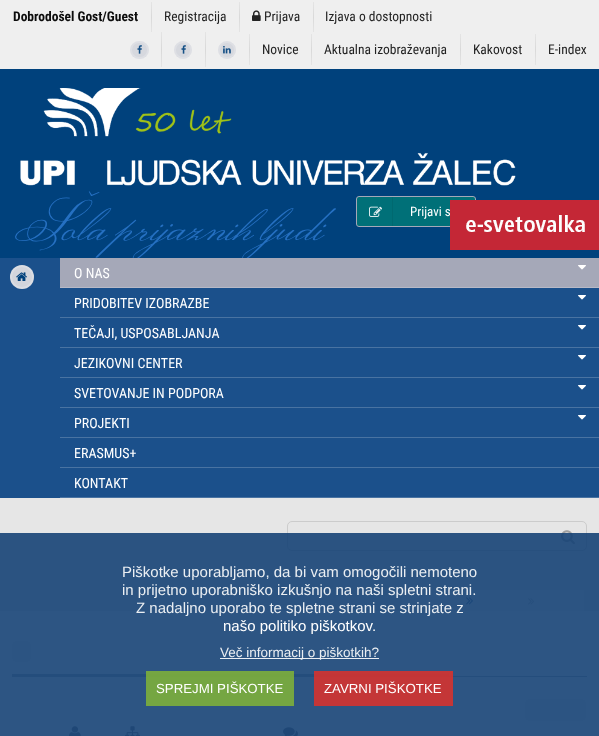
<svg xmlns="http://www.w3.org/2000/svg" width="599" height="736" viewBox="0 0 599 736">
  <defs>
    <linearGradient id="g1" gradientUnits="userSpaceOnUse" x1="152" y1="2" x2="152" y2="32"><stop offset="0" stop-color="#e4e4e4"/><stop offset="0.5" stop-color="#d9d9d9"/><stop offset="1" stop-color="#e4e4e4"/></linearGradient>
    <linearGradient id="g2" gradientUnits="userSpaceOnUse" x1="240" y1="2" x2="240" y2="32"><stop offset="0" stop-color="#e4e4e4"/><stop offset="0.5" stop-color="#d9d9d9"/><stop offset="1" stop-color="#e4e4e4"/></linearGradient>
    <linearGradient id="g3" gradientUnits="userSpaceOnUse" x1="314" y1="2" x2="314" y2="32"><stop offset="0" stop-color="#e4e4e4"/><stop offset="0.5" stop-color="#d9d9d9"/><stop offset="1" stop-color="#e4e4e4"/></linearGradient>
    <linearGradient id="g4" gradientUnits="userSpaceOnUse" x1="162" y1="32" x2="162" y2="67"><stop offset="0" stop-color="#e4e4e4"/><stop offset="0.5" stop-color="#d9d9d9"/><stop offset="1" stop-color="#e4e4e4"/></linearGradient>
    <linearGradient id="g5" gradientUnits="userSpaceOnUse" x1="206" y1="32" x2="206" y2="67"><stop offset="0" stop-color="#e4e4e4"/><stop offset="0.5" stop-color="#d9d9d9"/><stop offset="1" stop-color="#e4e4e4"/></linearGradient>
    <linearGradient id="g6" gradientUnits="userSpaceOnUse" x1="250" y1="34" x2="250" y2="65"><stop offset="0" stop-color="#e4e4e4"/><stop offset="0.5" stop-color="#d9d9d9"/><stop offset="1" stop-color="#e4e4e4"/></linearGradient>
    <linearGradient id="g7" gradientUnits="userSpaceOnUse" x1="312" y1="34" x2="312" y2="65"><stop offset="0" stop-color="#e4e4e4"/><stop offset="0.5" stop-color="#d9d9d9"/><stop offset="1" stop-color="#e4e4e4"/></linearGradient>
    <linearGradient id="g8" gradientUnits="userSpaceOnUse" x1="461" y1="34" x2="461" y2="65"><stop offset="0" stop-color="#e4e4e4"/><stop offset="0.5" stop-color="#d9d9d9"/><stop offset="1" stop-color="#e4e4e4"/></linearGradient>
    <linearGradient id="g9" gradientUnits="userSpaceOnUse" x1="536" y1="34" x2="536" y2="65"><stop offset="0" stop-color="#e4e4e4"/><stop offset="0.5" stop-color="#d9d9d9"/><stop offset="1" stop-color="#e4e4e4"/></linearGradient>
  </defs>
  <rect width="100%" height="100%" fill="#ffffff"/>
  <rect x="0" y="69" width="599" height="189" fill="#00417c"/>
  <rect x="0" y="0" width="599" height="69" fill="#efefef"/>
  <text x="13" y="21" font-family="Roboto Condensed" font-size="13.5" font-weight="bold" fill="#0c0c0c">Dobrodošel Gost/Guest</text>
  <rect x="151" y="2" width="1" height="30" fill="url(#g1)"/>
  <text x="164" y="21" font-family="Roboto Condensed" font-size="13.5" fill="#232323">Registracija</text>
  <rect x="239" y="2" width="1" height="30" fill="url(#g2)"/>
  <image x="252" y="10" width="9" height="11" href="img1.png"/>
  <text x="264" y="21" font-family="Roboto Condensed" font-size="13.5" fill="#232323">Prijava</text>
  <rect x="313" y="2" width="1" height="30" fill="url(#g3)"/>
  <text x="325" y="21" font-family="Roboto Condensed" font-size="13.5" fill="#232323">Izjava o dostopnosti</text>
  <rect x="130" y="41" width="19" height="18" rx="9" fill="#d6d8de"/>
  <rect x="131" y="42" width="17" height="16" rx="8" fill="none" stroke="#fdfdfd" stroke-opacity="0.2" stroke-width="2"/>
  <image x="137" y="45" width="5" height="9" href="img2.png"/>
  <rect x="161" y="32" width="1" height="35" fill="url(#g4)"/>
  <circle cx="183" cy="50" r="9" fill="#d6d8de"/>
  <circle cx="183" cy="50" r="8" fill="none" stroke="#fdfdfd" stroke-opacity="0.2" stroke-width="2"/>
  <image x="181" y="45" width="5" height="9" href="img2.png"/>
  <rect x="205" y="32" width="1" height="35" fill="url(#g5)"/>
  <circle cx="227" cy="50" r="9" fill="#d6d8de"/>
  <circle cx="227" cy="50" r="8" fill="none" stroke="#fdfdfd" stroke-opacity="0.2" stroke-width="2"/>
  <image x="223" y="46" width="8" height="8" href="img3.png"/>
  <rect x="249" y="34" width="1" height="31" fill="url(#g6)"/>
  <text x="262" y="54" font-family="Roboto Condensed" font-size="13.5" fill="#232323">Novice</text>
  <rect x="311" y="34" width="1" height="31" fill="url(#g7)"/>
  <text x="324" y="54" font-family="Roboto Condensed" font-size="13.5" fill="#232323">Aktualna izobraževanja</text>
  <rect x="460" y="34" width="1" height="31" fill="url(#g8)"/>
  <text x="473" y="54" font-family="Roboto Condensed" font-size="13.5" fill="#232323">Kakovost</text>
  <rect x="535" y="34" width="1" height="31" fill="url(#g9)"/>
  <text x="548" y="54" font-family="Roboto Condensed" font-size="13.5" fill="#232323">E-index</text>
  <image x="20" y="88" width="496" height="98" href="img4.png"/>
  <rect x="0" y="258" width="599" height="240" fill="#1b508b"/>
  <text x="15" y="239" font-family="Monsieur La Doulaise" font-size="52.5" fill="#2570c2">Šola prijaznih ljudi</text>
  <rect x="356.5" y="196.5" width="119" height="30" rx="2.5" fill="#007078" stroke="#a5a8b8"/>
  <rect x="392" y="197" width="1" height="29" fill="#006970"/>
  <image x="369" y="206" width="13" height="11" href="img5.png"/>
  <text x="410" y="216" font-family="Roboto Condensed" font-size="13" fill="#ffffff">Prijavi s</text>
  <image x="450" y="200" width="149" height="50" href="img6.png"/>
  <circle cx="22" cy="277" r="12" fill="#d3d5dc"/>
  <circle cx="22" cy="277" r="11" fill="none" stroke="#ffffff" stroke-opacity="0.2" stroke-width="2"/>
  <image x="16" y="272" width="11" height="9" href="img7.png"/>
  <rect x="60" y="258" width="539" height="29" fill="#a5a8b8"/>
  <rect x="60" y="287" width="539" height="1" fill="#b7b9c6"/>
  <text x="74" y="278" font-family="Roboto Condensed" font-size="14" fill="#ffffff">O NAS</text>
  <image x="578" y="265" width="8" height="5" href="img8.png"/>
  <rect x="60" y="317" width="539" height="1" fill="#4973a2"/>
  <text x="74" y="308" font-family="Roboto Condensed" font-size="14" fill="#ffffff">PRIDOBITEV IZOBRAZBE</text>
  <image x="578" y="295" width="8" height="5" href="img9.png"/>
  <rect x="60" y="347" width="539" height="1" fill="#4973a2"/>
  <text x="74" y="338" font-family="Roboto Condensed" font-size="14" fill="#ffffff">TEČAJI, USPOSABLJANJA</text>
  <image x="578" y="325" width="8" height="5" href="img9.png"/>
  <rect x="60" y="377" width="539" height="1" fill="#4973a2"/>
  <text x="74" y="368" font-family="Roboto Condensed" font-size="14" fill="#ffffff">JEZIKOVNI CENTER</text>
  <image x="578" y="355" width="8" height="5" href="img9.png"/>
  <rect x="60" y="407" width="539" height="1" fill="#4973a2"/>
  <text x="74" y="398" font-family="Roboto Condensed" font-size="14" fill="#ffffff">SVETOVANJE IN PODPORA</text>
  <image x="578" y="385" width="8" height="5" href="img9.png"/>
  <rect x="60" y="437" width="539" height="1" fill="#4973a2"/>
  <text x="74" y="428" font-family="Roboto Condensed" font-size="14" fill="#ffffff">PROJEKTI</text>
  <image x="578" y="415" width="8" height="5" href="img9.png"/>
  <rect x="60" y="467" width="539" height="1" fill="#4973a2"/>
  <text x="74" y="458" font-family="Roboto Condensed" font-size="14" fill="#ffffff">ERASMUS+</text>
  <rect x="60" y="497" width="539" height="1" fill="#4973a2"/>
  <text x="74" y="488" font-family="Roboto Condensed" font-size="14" fill="#ffffff">KONTAKT</text>
  <rect x="0" y="498" width="599" height="113" fill="#e6e6e6"/>
  <rect x="287.5" y="521.5" width="299" height="29" rx="4.5" fill="none" stroke="#cccccc"/>
  <image x="561" y="530" width="14" height="14" href="img10.png"/>
  <rect x="402" y="590" width="182" height="21" fill="#f0f0f0"/>
  <image x="466" y="597" width="7" height="8" href="img11.png"/>
  <image x="528" y="598" width="6" height="7" href="img12.png"/>
  <rect x="12" y="676" width="575" height="1" fill="#a5a8b8"/>
  <rect x="12" y="674" width="437" height="2" fill="#a5a8b8"/>
  <rect x="12" y="641" width="19" height="21" rx="4" fill="#f5f5f5"/>
  <rect x="525" y="699" width="61" height="22" rx="4" fill="#f5f5f5"/>
  <image x="69" y="726" width="12" height="10" href="img13.png"/>
  <image x="125" y="726" width="15" height="10" href="img14.png"/>
  <image x="283" y="727" width="15" height="9" href="img15.png"/>
  <rect x="0" y="533" width="599" height="203" fill="#164275" fill-opacity="0.9"/>
  <text x="122" y="577" font-family="Liberation Sans" font-size="15" fill="#eaeef2">Piškotke uporabljamo, da bi vam omogočili nemoteno</text>
  <text x="122" y="595" font-family="Liberation Sans" font-size="15" fill="#eaeef2">in prijetno uporabniško izkušnjo na naši spletni strani.</text>
  <text x="136" y="613" font-family="Liberation Sans" font-size="15" fill="#eaeef2">Z nadaljno uporabo te spletne strani se strinjate z</text>
  <text x="223" y="631" font-family="Liberation Sans" font-size="15" fill="#ffffff">našo politiko piškotkov.</text>
  <rect x="220" y="658" width="159" height="1" fill="#ffffff" fill-opacity="0.9"/>
  <text x="220" y="657" font-family="Liberation Sans" font-size="13.5" fill="#eaeef2">Več informacij o piškotkih?</text>
  <rect x="146" y="671" width="148" height="35" fill="#7daf3b" fill-opacity="0.9"/>
  <text x="156" y="693" font-family="Liberation Sans" font-size="13.25" fill="#ffffff">SPREJMI PIŠKOTKE</text>
  <rect x="314" y="671" width="139" height="35" fill="#d5332f" fill-opacity="0.9"/>
  <text x="324" y="693" font-family="Liberation Sans" font-size="13.25" fill="#ffffff">ZAVRNI PIŠKOTKE</text>
</svg>
